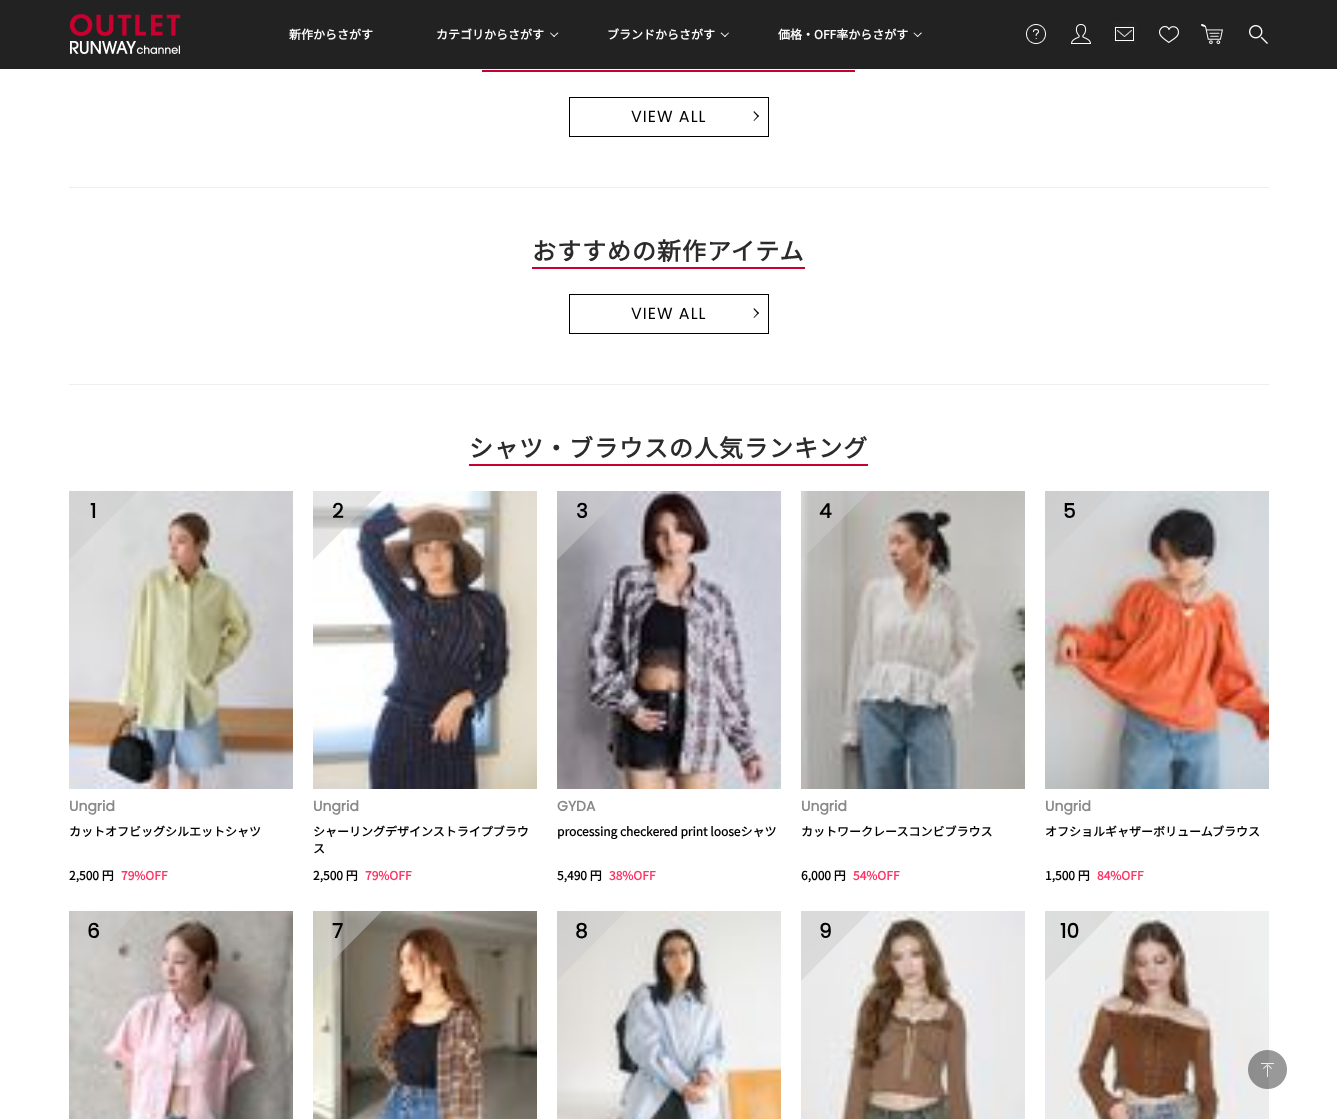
<svg xmlns="http://www.w3.org/2000/svg" width="1337" height="1119" viewBox="0 0 1337 1119">
  <rect width="100%" height="100%" fill="#ffffff"/>
  <rect x="0" y="0" width="1337" height="69" fill="#222222"/>
  <image x="69" y="9" width="112" height="47" href="img1.png"/>
  <image x="1026" y="23" width="20" height="21" href="img2.png"/>
  <image x="1071" y="24" width="20" height="20" href="img3.png"/>
  <image x="1113" y="21" width="24" height="24" href="img4.png"/>
  <image x="1159" y="24" width="20" height="19" href="img5.png"/>
  <image x="1201" y="24" width="23" height="20" href="img6.png"/>
  <image x="1249" y="25" width="19" height="19" href="img7.png"/>
  <text x="289" y="39" font-family="Noto Sans JP" font-size="12" font-weight="bold" fill="#ffffff">新作からさがす</text>
  <text x="436" y="39" font-family="Noto Sans JP" font-size="12" font-weight="bold" fill="#ffffff">カテゴリからさがす</text>
  <path d="M558.5 33L554 37L553.5 36.5L557.5 32.5Z" fill="#ffffff"/>
  <path d="M555 36.5L554 37L550 33L550.5 32.5Z" fill="#ffffff"/>
  <text x="607" y="39" font-family="Noto Sans JP" font-size="12" font-weight="bold" fill="#ffffff">ブランドからさがす</text>
  <path d="M729 33L725 37L724 36.5L728.5 32.5Z" fill="#ffffff"/>
  <path d="M725.5 36.5L725 37L720.5 33L721.5 32.5Z" fill="#ffffff"/>
  <text x="778" y="39" font-family="Noto Sans JP" font-size="12" font-weight="bold" fill="#ffffff">価格・OFF率からさがす</text>
  <path d="M922 33L917.5 37L917 36.5L921 32.5Z" fill="#ffffff"/>
  <path d="M918.5 36.5L917.5 37L913.5 33L914 32.5Z" fill="#ffffff"/>
  <rect x="69" y="187" width="1200" height="1" fill="#eeeeee"/>
  <rect x="482" y="70" width="373" height="2" fill="#c7002f"/>
  <rect x="569.5" y="97.5" width="199" height="39" fill="none" stroke="#000000"/>
  <text x="631" y="122" font-family="Poppins" font-size="16" letter-spacing="1" fill="#000000">VIEW ALL</text>
  <path d="M754 111L759 116L758 117L753.5 112Z" fill="#000000"/>
  <path d="M758 115.5L759 116L754 121L753.5 120.5Z" fill="#000000"/>
  <rect x="69" y="384" width="1200" height="1" fill="#eeeeee"/>
  <text x="532" y="260" font-family="Noto Sans JP" font-size="24" font-weight="bold" letter-spacing="1" fill="#2b2b2b">おすすめの新作アイテム</text>
  <rect x="532" y="267" width="273" height="2" fill="#c7002f"/>
  <rect x="569.5" y="294.5" width="199" height="39" fill="none" stroke="#000000"/>
  <text x="631" y="319" font-family="Poppins" font-size="16" letter-spacing="1" fill="#000000">VIEW ALL</text>
  <path d="M754 308L759 313L758 314L753.5 309Z" fill="#000000"/>
  <path d="M758 312.5L759 313L754 318L753.5 317.5Z" fill="#000000"/>
  <text x="469" y="457" font-family="Noto Sans JP" font-size="24" font-weight="bold" letter-spacing="1" fill="#2b2b2b">シャツ・ブラウスの人気ランキング</text>
  <rect x="469" y="464" width="399" height="2" fill="#c7002f"/>
  <image x="69" y="491" width="224" height="298" href="img8.png"/>
  <path d="M69 491V560L138 491Z" fill="#cccccc" fill-opacity="0.5"/>
  <text x="90" y="518" font-family="Poppins" font-size="20" font-weight="bold" fill="#000000">1</text>
  <text x="69" y="811" font-family="Poppins" font-size="14" font-weight="bold" fill="#888888">Ungrid</text>
  <text x="69" y="836" font-family="Noto Sans JP" font-size="12" font-weight="bold" fill="#000000">カットオフビッグシルエットシャツ</text>
  <text x="69" y="880" font-family="Noto Sans JP" font-size="12" font-weight="bold" fill="#000000">2,500 円</text>
  <text x="121" y="880" font-family="Noto Sans JP" font-size="12" font-weight="bold" fill="#ff3363">79%OFF</text>
  <image x="313" y="491" width="224" height="298" href="img9.png"/>
  <path d="M313 491V560L382 491Z" fill="#cccccc" fill-opacity="0.5"/>
  <text x="332" y="518" font-family="Poppins" font-size="20" font-weight="bold" fill="#000000">2</text>
  <text x="313" y="811" font-family="Poppins" font-size="14" font-weight="bold" fill="#888888">Ungrid</text>
  <text x="313" y="836" font-family="Noto Sans JP" font-size="12" font-weight="bold" fill="#000000">シャーリングデザインストライプブラウ</text>
  <text x="313" y="853" font-family="Noto Sans JP" font-size="12" font-weight="bold" fill="#000000">ス</text>
  <text x="313" y="880" font-family="Noto Sans JP" font-size="12" font-weight="bold" fill="#000000">2,500 円</text>
  <text x="365" y="880" font-family="Noto Sans JP" font-size="12" font-weight="bold" fill="#ff3363">79%OFF</text>
  <image x="557" y="491" width="224" height="298" href="img10.png"/>
  <path d="M557 491V560L626 491Z" fill="#cccccc" fill-opacity="0.5"/>
  <text x="576" y="518" font-family="Poppins" font-size="20" font-weight="bold" fill="#000000">3</text>
  <text x="557" y="811" font-family="Poppins" font-size="14" font-weight="bold" fill="#888888">GYDA</text>
  <text x="557" y="836" font-family="Noto Sans JP" font-size="12" font-weight="bold" fill="#000000">processing checkered print looseシャツ</text>
  <text x="557" y="880" font-family="Noto Sans JP" font-size="12" font-weight="bold" fill="#000000">5,490 円</text>
  <text x="609" y="880" font-family="Noto Sans JP" font-size="12" font-weight="bold" fill="#ff3363">38%OFF</text>
  <image x="801" y="491" width="224" height="298" href="img11.png"/>
  <path d="M801 491V560L870 491Z" fill="#cccccc" fill-opacity="0.5"/>
  <text x="819" y="518" font-family="Poppins" font-size="20" font-weight="bold" fill="#000000">4</text>
  <text x="801" y="811" font-family="Poppins" font-size="14" font-weight="bold" fill="#888888">Ungrid</text>
  <text x="801" y="836" font-family="Noto Sans JP" font-size="12" font-weight="bold" fill="#000000">カットワークレースコンビブラウス</text>
  <text x="801" y="880" font-family="Noto Sans JP" font-size="12" font-weight="bold" fill="#000000">6,000 円</text>
  <text x="853" y="880" font-family="Noto Sans JP" font-size="12" font-weight="bold" fill="#ff3363">54%OFF</text>
  <image x="1045" y="491" width="224" height="298" href="img12.png"/>
  <path d="M1045 491V560L1114 491Z" fill="#cccccc" fill-opacity="0.5"/>
  <text x="1063" y="518" font-family="Poppins" font-size="20" font-weight="bold" fill="#000000">5</text>
  <text x="1045" y="811" font-family="Poppins" font-size="14" font-weight="bold" fill="#888888">Ungrid</text>
  <text x="1045" y="836" font-family="Noto Sans JP" font-size="12" font-weight="bold" fill="#000000">オフショルギャザーボリュームブラウス</text>
  <text x="1045" y="880" font-family="Noto Sans JP" font-size="12" font-weight="bold" fill="#000000">1,500 円</text>
  <text x="1097" y="880" font-family="Noto Sans JP" font-size="12" font-weight="bold" fill="#ff3363">84%OFF</text>
  <image x="69" y="911" width="224" height="208" href="img13.png"/>
  <path d="M138 911L69 981V911Z" fill="#cccccc" fill-opacity="0.5"/>
  <text x="87" y="938" font-family="Poppins" font-size="20" font-weight="bold" fill="#000000">6</text>
  <image x="313" y="911" width="224" height="208" href="img14.png"/>
  <path d="M382 911L313 981V911Z" fill="#cccccc" fill-opacity="0.5"/>
  <text x="332" y="938" font-family="Poppins" font-size="20" font-weight="bold" fill="#000000">7</text>
  <image x="557" y="911" width="224" height="208" href="img15.png"/>
  <path d="M626 911L557 981V911Z" fill="#cccccc" fill-opacity="0.5"/>
  <text x="575" y="938" font-family="Poppins" font-size="20" font-weight="bold" fill="#000000">8</text>
  <image x="801" y="911" width="224" height="208" href="img16.png"/>
  <path d="M870 911L801 981V911Z" fill="#cccccc" fill-opacity="0.5"/>
  <text x="819" y="938" font-family="Poppins" font-size="20" font-weight="bold" fill="#000000">9</text>
  <image x="1045" y="911" width="224" height="208" href="img17.png"/>
  <path d="M1114 911L1045 981V911Z" fill="#cccccc" fill-opacity="0.5"/>
  <text x="1060" y="938" font-family="Poppins" font-size="20" font-weight="bold" fill="#000000">10</text>
  <image x="1248" y="1050" width="39" height="39" href="img18.png"/>
</svg>
